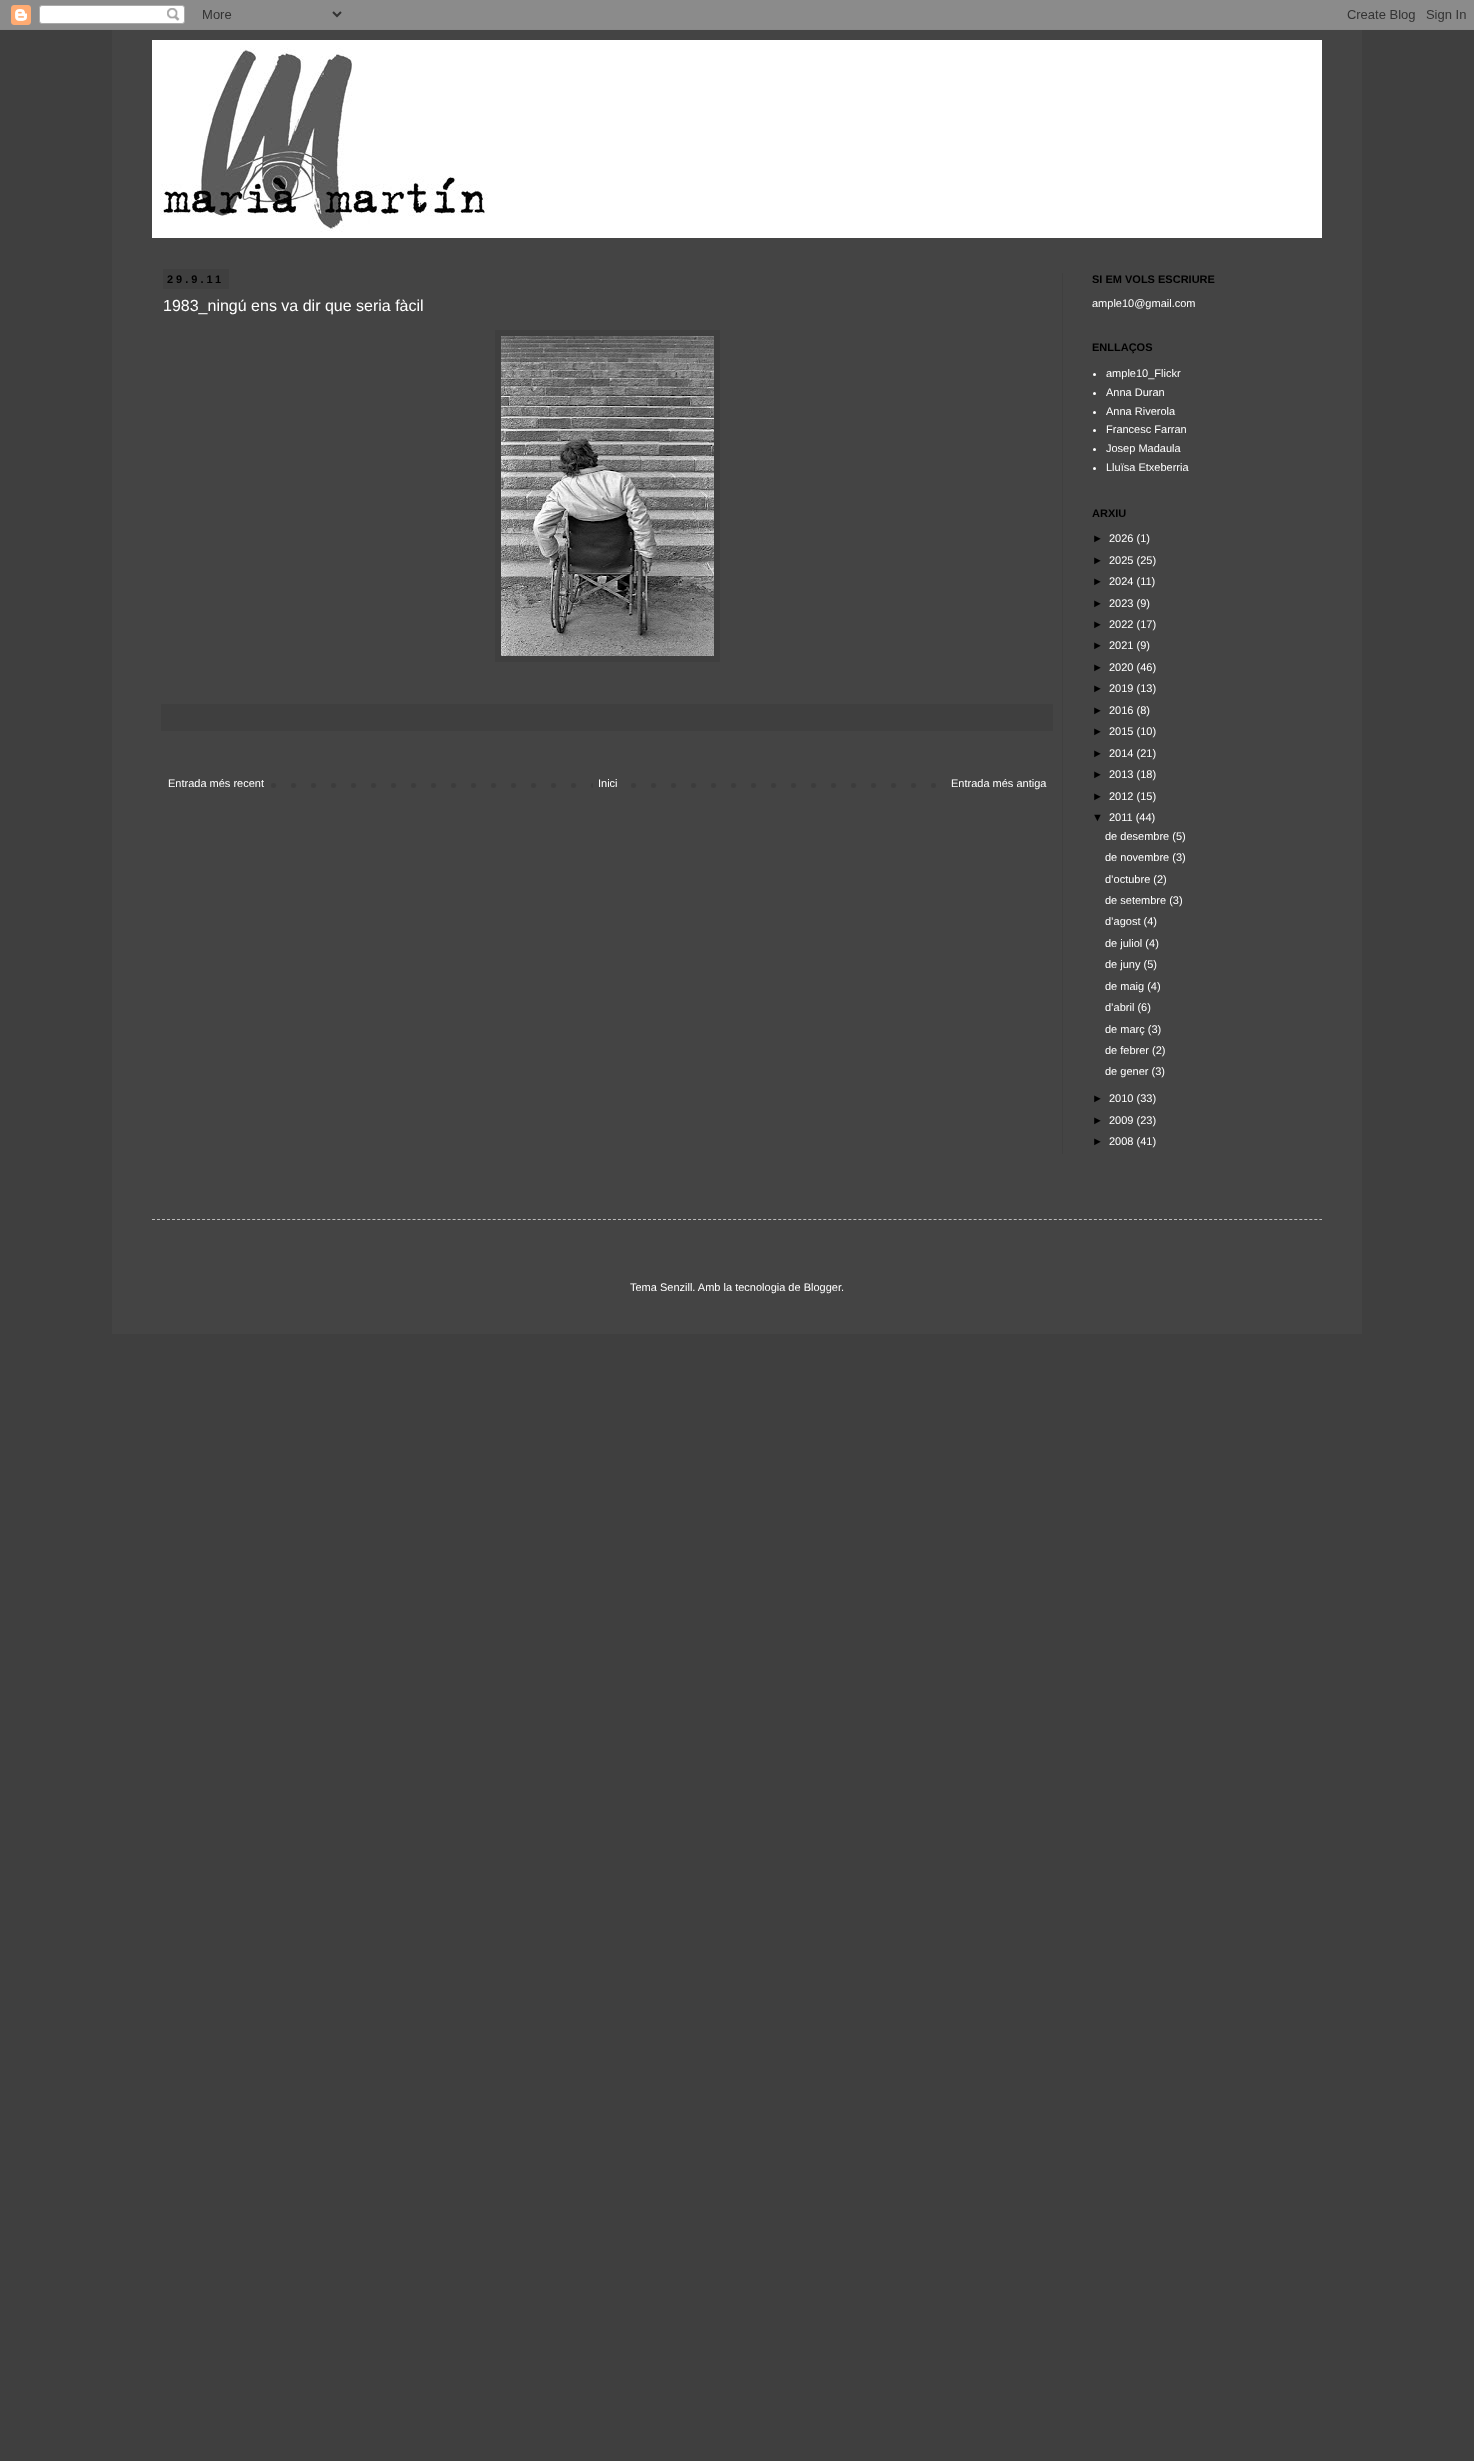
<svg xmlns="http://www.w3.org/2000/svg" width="1474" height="2461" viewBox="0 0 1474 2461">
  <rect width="100%" height="100%" fill="#3f3f3f"/>
  <image x="0" y="0" width="1474" height="30" href="img1.png"/>
  <rect x="112" y="30" width="1250" height="1304" fill="#444444"/>
  <rect x="152" y="40" width="1170" height="198" fill="#ffffff"/>
  <image x="160" y="48" width="328" height="184" href="img2.png"/>
  <rect x="1062" y="273" width="1" height="881" fill="#3f3f3f"/>
  <rect x="163" y="269" width="66" height="20" fill="#3f3f3f"/>
  <text x="167" y="283" font-family="Liberation Sans" font-size="11" font-weight="bold" letter-spacing="3" fill="#000000">29.9.11</text>
  <text x="163" y="311" font-family="Liberation Sans" font-size="16" fill="#ffffff">1983_ningú ens va dir que seria fàcil</text>
  <rect x="495" y="330" width="225" height="332" fill="#3f3f3f"/>
  <image x="501" y="336" width="213" height="320" href="img3.png"/>
  <rect x="161" y="704" width="892" height="27" fill="#3f3f3f"/>
  <image x="271" y="783" width="665" height="5" href="img4.png"/>
  <text x="168" y="787" font-family="Liberation Sans" font-size="11" fill="#ffffff">Entrada més recent</text>
  <rect x="593" y="783" width="23" height="5" fill="#444444"/>
  <text x="598" y="787" font-family="Liberation Sans" font-size="11" fill="#ffffff">Inici</text>
  <text x="951" y="787" font-family="Liberation Sans" font-size="11" fill="#ffffff">Entrada més antiga</text>
  <text x="1092" y="283" font-family="Liberation Sans" font-size="11" font-weight="bold" fill="#000000">SI EM VOLS ESCRIURE</text>
  <text x="1092" y="307" font-family="Liberation Sans" font-size="11" fill="#ffffff">ample10@gmail.com</text>
  <text x="1092" y="351" font-family="Liberation Sans" font-size="11" font-weight="bold" fill="#000000">ENLLAÇOS</text>
  <circle cx="1094.5" cy="374.5" r="1.5" fill="#ffffff"/>
  <text x="1106" y="377" font-family="Liberation Sans" font-size="11" fill="#ffffff">ample10_Flickr</text>
  <circle cx="1094.5" cy="393.5" r="1.5" fill="#ffffff"/>
  <text x="1106" y="396" font-family="Liberation Sans" font-size="11" fill="#ffffff">Anna Duran</text>
  <circle cx="1094.5" cy="412.5" r="1.5" fill="#ffffff"/>
  <text x="1106" y="415" font-family="Liberation Sans" font-size="11" fill="#ffffff">Anna Riverola</text>
  <circle cx="1094.5" cy="430.5" r="1.5" fill="#ffffff"/>
  <text x="1106" y="433" font-family="Liberation Sans" font-size="11" fill="#ffffff">Francesc Farran</text>
  <circle cx="1094.5" cy="449.5" r="1.5" fill="#ffffff"/>
  <text x="1106" y="452" font-family="Liberation Sans" font-size="11" fill="#ffffff">Josep Madaula</text>
  <circle cx="1094.5" cy="468.5" r="1.5" fill="#ffffff"/>
  <text x="1106" y="471" font-family="Liberation Sans" font-size="11" fill="#ffffff">Lluïsa Etxeberria</text>
  <text x="1092" y="517" font-family="Liberation Sans" font-size="11" font-weight="bold" fill="#000000">ARXIU</text>
  <text x="1092" y="542" font-family="Liberation Sans" font-size="11" fill="#000000">►</text>
  <text x="1109" y="542" font-family="Liberation Sans" font-size="11" fill="#ffffff">2026 (1)</text>
  <text x="1092" y="564" font-family="Liberation Sans" font-size="11" fill="#000000">►</text>
  <text x="1109" y="564" font-family="Liberation Sans" font-size="11" fill="#ffffff">2025 (25)</text>
  <text x="1092" y="585" font-family="Liberation Sans" font-size="11" fill="#000000">►</text>
  <text x="1109" y="585" font-family="Liberation Sans" font-size="11" fill="#ffffff">2024 (11)</text>
  <text x="1092" y="607" font-family="Liberation Sans" font-size="11" fill="#000000">►</text>
  <text x="1109" y="607" font-family="Liberation Sans" font-size="11" fill="#ffffff">2023 (9)</text>
  <text x="1092" y="628" font-family="Liberation Sans" font-size="11" fill="#000000">►</text>
  <text x="1109" y="628" font-family="Liberation Sans" font-size="11" fill="#ffffff">2022 (17)</text>
  <text x="1092" y="649" font-family="Liberation Sans" font-size="11" fill="#000000">►</text>
  <text x="1109" y="649" font-family="Liberation Sans" font-size="11" fill="#ffffff">2021 (9)</text>
  <text x="1092" y="671" font-family="Liberation Sans" font-size="11" fill="#000000">►</text>
  <text x="1109" y="671" font-family="Liberation Sans" font-size="11" fill="#ffffff">2020 (46)</text>
  <text x="1092" y="692" font-family="Liberation Sans" font-size="11" fill="#000000">►</text>
  <text x="1109" y="692" font-family="Liberation Sans" font-size="11" fill="#ffffff">2019 (13)</text>
  <text x="1092" y="714" font-family="Liberation Sans" font-size="11" fill="#000000">►</text>
  <text x="1109" y="714" font-family="Liberation Sans" font-size="11" fill="#ffffff">2016 (8)</text>
  <text x="1092" y="735" font-family="Liberation Sans" font-size="11" fill="#000000">►</text>
  <text x="1109" y="735" font-family="Liberation Sans" font-size="11" fill="#ffffff">2015 (10)</text>
  <text x="1092" y="757" font-family="Liberation Sans" font-size="11" fill="#000000">►</text>
  <text x="1109" y="757" font-family="Liberation Sans" font-size="11" fill="#ffffff">2014 (21)</text>
  <text x="1092" y="778" font-family="Liberation Sans" font-size="11" fill="#000000">►</text>
  <text x="1109" y="778" font-family="Liberation Sans" font-size="11" fill="#ffffff">2013 (18)</text>
  <text x="1092" y="800" font-family="Liberation Sans" font-size="11" fill="#000000">►</text>
  <text x="1109" y="800" font-family="Liberation Sans" font-size="11" fill="#ffffff">2012 (15)</text>
  <text x="1092" y="821" font-family="Liberation Sans" font-size="11" fill="#000000">▼</text>
  <text x="1109" y="821" font-family="Liberation Sans" font-size="11" fill="#ffffff">2011 (44)</text>
  <text x="1105" y="840" font-family="Liberation Sans" font-size="11" fill="#ffffff">de desembre (5)</text>
  <text x="1105" y="861" font-family="Liberation Sans" font-size="11" fill="#ffffff">de novembre (3)</text>
  <text x="1105" y="883" font-family="Liberation Sans" font-size="11" fill="#ffffff">d’octubre (2)</text>
  <text x="1105" y="904" font-family="Liberation Sans" font-size="11" fill="#ffffff">de setembre (3)</text>
  <text x="1105" y="925" font-family="Liberation Sans" font-size="11" fill="#ffffff">d’agost (4)</text>
  <text x="1105" y="947" font-family="Liberation Sans" font-size="11" fill="#ffffff">de juliol (4)</text>
  <text x="1105" y="968" font-family="Liberation Sans" font-size="11" fill="#ffffff">de juny (5)</text>
  <text x="1105" y="990" font-family="Liberation Sans" font-size="11" fill="#ffffff">de maig (4)</text>
  <text x="1105" y="1011" font-family="Liberation Sans" font-size="11" fill="#ffffff">d’abril (6)</text>
  <text x="1105" y="1033" font-family="Liberation Sans" font-size="11" fill="#ffffff">de març (3)</text>
  <text x="1105" y="1054" font-family="Liberation Sans" font-size="11" fill="#ffffff">de febrer (2)</text>
  <text x="1105" y="1075" font-family="Liberation Sans" font-size="11" fill="#ffffff">de gener (3)</text>
  <text x="1092" y="1102" font-family="Liberation Sans" font-size="11" fill="#000000">►</text>
  <text x="1109" y="1102" font-family="Liberation Sans" font-size="11" fill="#ffffff">2010 (33)</text>
  <text x="1092" y="1124" font-family="Liberation Sans" font-size="11" fill="#000000">►</text>
  <text x="1109" y="1124" font-family="Liberation Sans" font-size="11" fill="#ffffff">2009 (23)</text>
  <text x="1092" y="1145" font-family="Liberation Sans" font-size="11" fill="#000000">►</text>
  <text x="1109" y="1145" font-family="Liberation Sans" font-size="11" fill="#ffffff">2008 (41)</text>
  <path d="M152 1219.5H1322" fill="none" stroke="#bbbbbb" stroke-dasharray="3 2.01"/>
  <text x="630" y="1291" font-family="Liberation Sans" font-size="11" fill="#ffffff">Tema Senzill. Amb la tecnologia de Blogger</text>
  <text x="841" y="1291" font-family="Liberation Sans" font-size="11" fill="#ffffff">.</text>
</svg>
